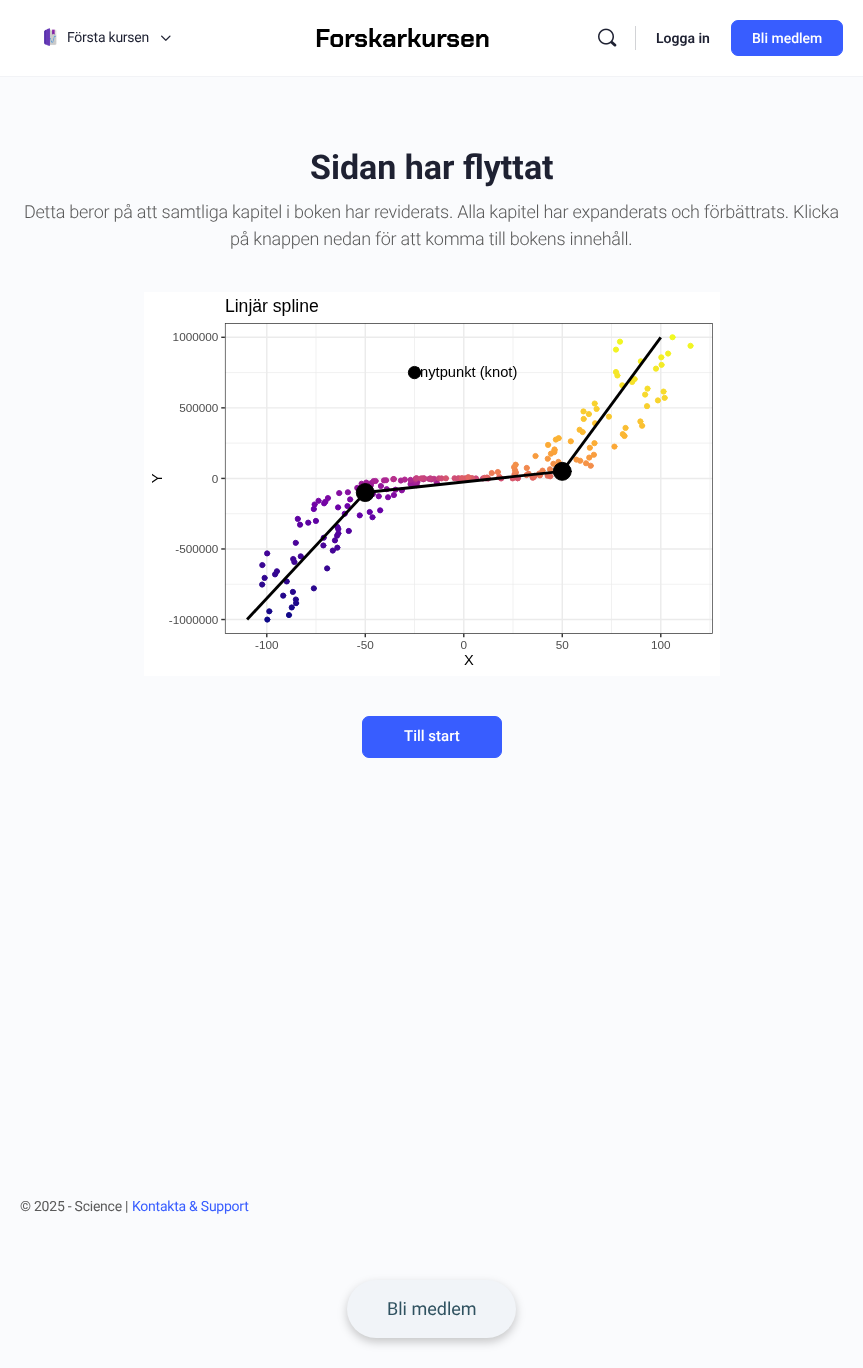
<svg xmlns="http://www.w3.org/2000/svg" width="863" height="1368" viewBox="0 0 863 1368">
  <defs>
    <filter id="blur1" x="-50%" y="-200%" width="200%" height="500%"><feGaussianBlur stdDeviation="5"/></filter>
  </defs>
  <rect width="100%" height="100%" fill="#fafbfd"/>
  <rect x="0" y="76" width="863" height="1" fill="#f2f3f6"/>
  <rect x="0" y="0" width="863" height="76" fill="#ffffff"/>
  <image x="44" y="28" width="13" height="18" href="img1.png"/>
  <text x="67" y="42" font-family="Roboto" font-size="14" letter-spacing="-0.24" fill="#1e2132">Första kursen</text>
  <image x="161" y="35" width="10" height="6" href="img2.png"/>
  <image x="316" y="28" width="173" height="19" href="img3.png"/>
  <image x="598" y="28" width="19" height="19" href="img4.png"/>
  <rect x="635" y="26" width="1" height="24" fill="#d2d3d6"/>
  <text x="656" y="43" font-family="Roboto" font-size="14" font-weight="600" fill="#1e2132">Logga in</text>
  <rect x="731.5" y="20.5" width="111" height="35" rx="6.5" fill="#385dff" stroke="#385dff"/>
  <text x="752" y="43" font-family="Roboto" font-size="14" font-weight="500" fill="#ffffff">Bli medlem</text>
  <text x="310" y="179" font-family="Roboto" font-size="34" font-weight="bold" fill="#1e2132">Sidan har flyttat</text>
  <text x="24" y="218" font-family="Roboto" font-size="18" font-weight="300" letter-spacing="-0.24" fill="#5a5a5a">Detta beror på att samtliga kapitel i boken har reviderats. Alla kapitel har expanderats och förbättrats. Klicka</text>
  <text x="230" y="245" font-family="Roboto" font-size="18" font-weight="300" letter-spacing="-0.24" fill="#5a5a5a">på knappen nedan för att komma till bokens innehåll.</text>
  <image x="144" y="292" width="576" height="384" href="img5.png"/>
  <rect x="362.5" y="716.5" width="139" height="41" rx="6.5" fill="#385dff" stroke="#385dff"/>
  <text x="404" y="741" font-family="Roboto" font-size="15" font-weight="500" fill="#ffffff">Till start</text>
  <text x="20" y="1211" font-family="Roboto" font-size="14" letter-spacing="-0.24" fill="#5a5a5a">© 2025 - Science |</text>
  <text x="132" y="1211" font-family="Roboto" font-size="14" letter-spacing="-0.24" fill="#385dff">Kontakta &amp; Support</text>
  <rect x="347" y="1284" width="169" height="58" rx="29" fill="#000000" fill-opacity="0.21" filter="url(#blur1)"/>
  <rect x="347" y="1280" width="169" height="58" rx="29" fill="#f1f4f8"/>
  <text x="387" y="1315" font-family="Roboto" font-size="18" fill="#305260">Bli medlem</text>
</svg>
